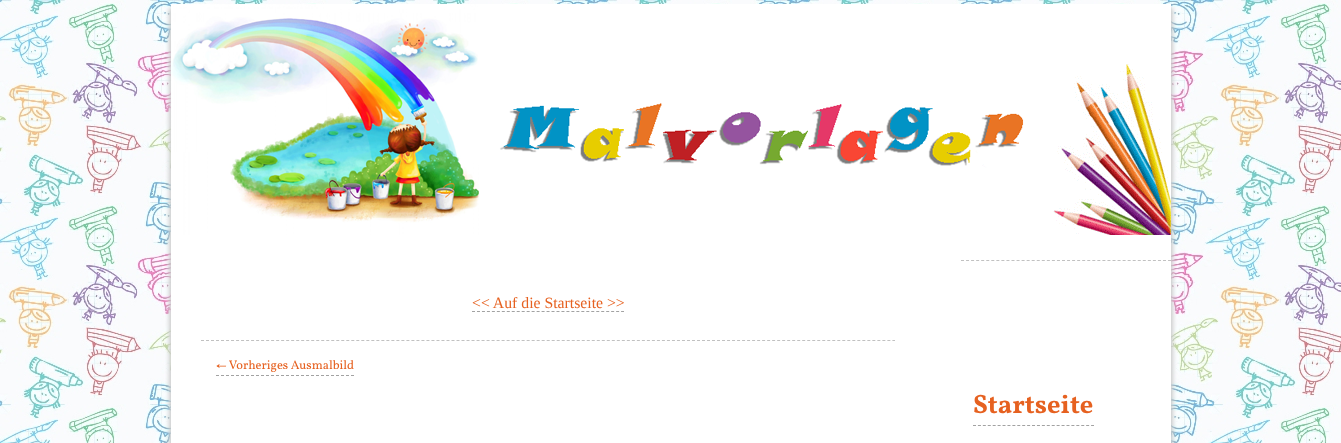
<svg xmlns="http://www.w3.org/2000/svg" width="1341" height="443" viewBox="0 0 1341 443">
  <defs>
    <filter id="blur1" x="-50%" y="-200%" width="200%" height="500%"><feGaussianBlur stdDeviation="2"/></filter>
  </defs>
  <rect width="100%" height="100%" fill="#ffffff"/>
  <image x="0" y="0" width="1341" height="443" href="img1.png"/>
  <rect x="169" y="8" width="1004" height="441" fill="#cccccc" filter="url(#blur1)"/>
  <rect x="171" y="235" width="1000" height="208" fill="#ffffff"/>
  <image x="171" y="4" width="1000" height="231" href="img2.png"/>
  <text x="472" y="308" font-family="Liberation Serif" font-size="15.75" fill="#e66120">&lt;&lt; Auf die Startseite &gt;&gt;</text>
  <path d="M472 311.5H624" fill="none" stroke="#a2a2a2" stroke-dasharray="3 1.97"/>
  <path d="M201 340.5H895" fill="none" stroke="#c1c1c1" stroke-dasharray="3 2.01"/>
  <text x="216" y="369" font-family="Vollkorn" font-size="12.5" fill="#e66120">← Vorheriges Ausmalbild</text>
  <path d="M216 375.5H354" fill="none" stroke="#a2a2a2" stroke-dasharray="3 2"/>
  <path d="M961 260.5H1171" fill="none" stroke="#c1c1c1" stroke-dasharray="3 2.05"/>
  <text x="973" y="413" font-family="Vollkorn" font-size="26.5" font-weight="bold" fill="#e66120">Startseite</text>
  <path d="M973 425.5H1094" fill="none" stroke="#a2a2a2" stroke-dasharray="3 1.92"/>
</svg>
